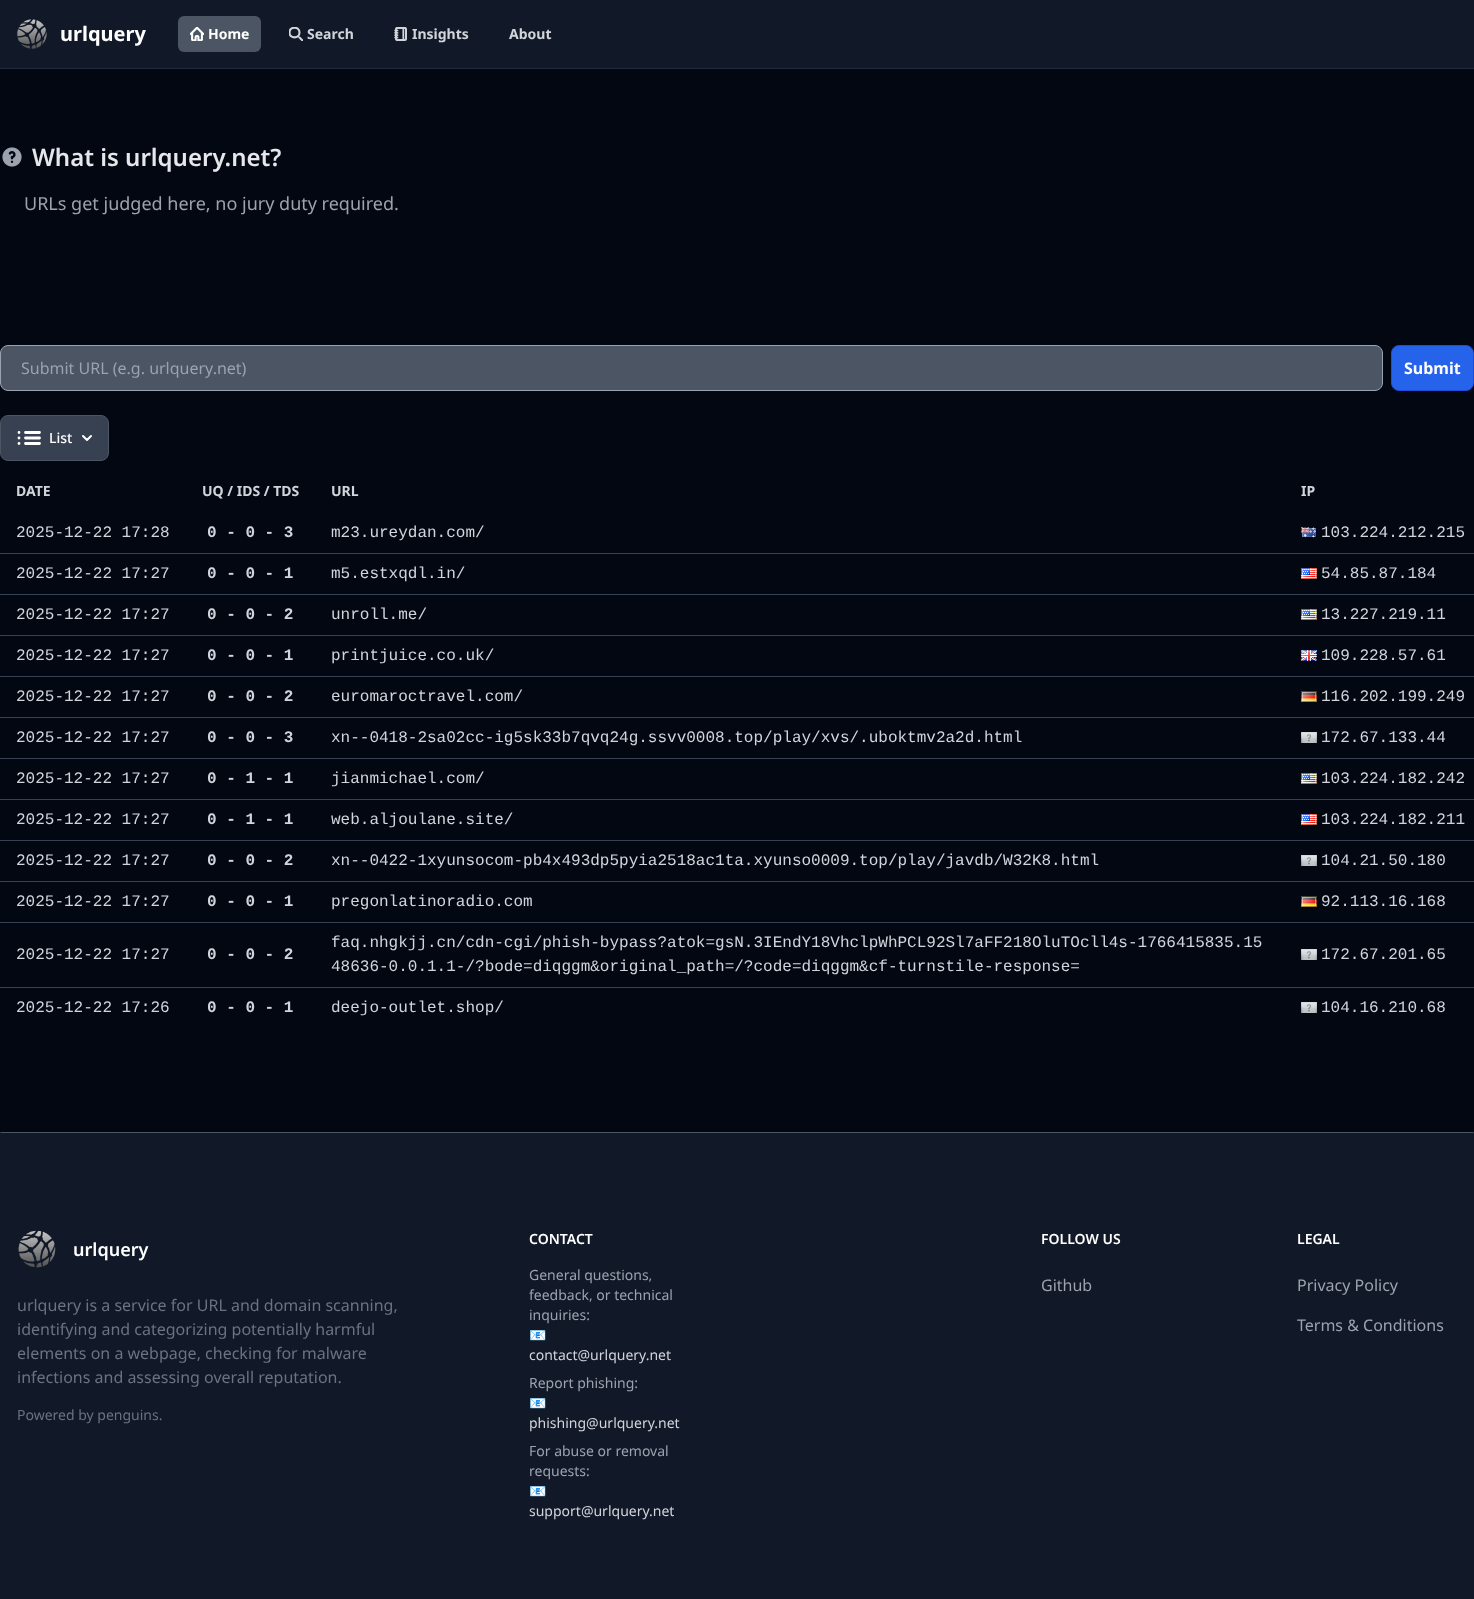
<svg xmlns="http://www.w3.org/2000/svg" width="1474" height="1599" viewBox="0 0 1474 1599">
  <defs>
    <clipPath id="clip1"><rect x="289" y="27" width="14" height="14"/></clipPath>
  </defs>
  <rect width="100%" height="100%" fill="#030712"/>
  <rect x="0" y="68" width="1474" height="1" fill="#1f2937"/>
  <rect x="0" y="0" width="1474" height="68" fill="#111827"/>
  <image x="17" y="19" width="30" height="30" href="img1.png"/>
  <text x="60" y="41" font-family="Noto Sans" font-size="20" font-weight="bold" fill="#ffffff">urlquery</text>
  <rect x="178" y="16" width="83" height="36" rx="6" fill="#4b5563"/>
  <image x="190" y="27" width="14" height="14" href="img2.png"/>
  <text x="208" y="39" font-family="Noto Sans" font-size="14" font-weight="bold" fill="#ffffff">Home</text>
  <g clip-path="url(#clip1)">
    <path d="M302.5 40.5L299.5 37.5M299.5 32.5C299.5 39 289.5 39 289.5 32.5C289.5 26 299.5 26 299.5 32.5Z" fill="none" stroke="#d1d5db" stroke-width="2.1" stroke-linecap="round" stroke-linejoin="round"/>
  </g>
  <text x="307" y="39" font-family="Noto Sans" font-size="14" font-weight="bold" fill="#d1d5db">Search</text>
  <image x="394" y="27" width="13" height="14" href="img3.png"/>
  <text x="412" y="39" font-family="Noto Sans" font-size="14" font-weight="bold" fill="#d1d5db">Insights</text>
  <text x="509" y="39" font-family="Noto Sans" font-size="14" font-weight="bold" fill="#d1d5db">About</text>
  <image x="2" y="147" width="20" height="20" href="img4.png"/>
  <text x="32" y="166" font-family="Noto Sans" font-size="24" font-weight="600" fill="#e5e7eb">What is urlquery.net?</text>
  <text x="24" y="210" font-family="Noto Sans" font-size="18" fill="#9ca3af">URLs get judged here, no jury duty required.</text>
  <rect x="0.5" y="345.5" width="1382" height="45" rx="7.5" fill="#4b5563" stroke="#9ca3af"/>
  <text x="21" y="374" font-family="Noto Sans" font-size="16" fill="#9ca3af">Submit URL (e.g. urlquery.net)</text>
  <rect x="1391.5" y="345.5" width="82" height="45" rx="7.5" fill="#2563eb" stroke="#1d4ed8"/>
  <text x="1404" y="374" font-family="Noto Sans" font-size="16" font-weight="bold" fill="#ffffff">Submit</text>
  <rect x="0.5" y="415.5" width="108" height="45" rx="7.5" fill="#374151" stroke="#4b5563"/>
  <path d="M25.5 432.5H39.5M25.5 438H39.5M25.5 443.5H39.5M19 432.5H19M19 438H19M19 443.5H19" fill="none" stroke="#ffffff" stroke-width="2.8" stroke-linecap="round"/>
  <text x="49" y="443" font-family="Noto Sans" font-size="14" font-weight="500" fill="#ffffff">List</text>
  <path d="M83 436L87 440L91 436" fill="none" stroke="#ffffff" stroke-width="2" stroke-linecap="round" stroke-linejoin="round"/>
  <text x="16" y="496" font-family="Noto Sans" font-size="14" font-weight="bold" fill="#d1d5db">DATE</text>
  <text x="202" y="496" font-family="Noto Sans" font-size="14" font-weight="bold" fill="#d1d5db">UQ / IDS / TDS</text>
  <text x="331" y="496" font-family="Noto Sans" font-size="14" font-weight="bold" fill="#d1d5db">URL</text>
  <text x="1301" y="496" font-family="Noto Sans" font-size="14" font-weight="bold" fill="#d1d5db">IP</text>
  <rect x="0" y="553" width="1474" height="1" fill="#374151"/>
  <text x="16" y="537" font-family="Liberation Mono" font-size="16" fill="#d1d5db">2025-12-22 17:28</text>
  <text x="207" y="537" font-family="Liberation Mono" font-size="16" font-weight="bold" fill="#d1d5db">0 - 0 - 3</text>
  <text x="331" y="537" font-family="Liberation Mono" font-size="16" fill="#d1d5db">m23.ureydan.com/</text>
  <image x="1301" y="527" width="16" height="11" href="img5.png"/>
  <text x="1321" y="537" font-family="Liberation Mono" font-size="16" fill="#d1d5db">103.224.212.215</text>
  <rect x="0" y="594" width="1474" height="1" fill="#374151"/>
  <text x="16" y="578" font-family="Liberation Mono" font-size="16" fill="#d1d5db">2025-12-22 17:27</text>
  <text x="207" y="578" font-family="Liberation Mono" font-size="16" font-weight="bold" fill="#d1d5db">0 - 0 - 1</text>
  <text x="331" y="578" font-family="Liberation Mono" font-size="16" fill="#d1d5db">m5.estxqdl.in/</text>
  <image x="1301" y="568" width="16" height="11" href="img6.png"/>
  <text x="1321" y="578" font-family="Liberation Mono" font-size="16" fill="#d1d5db">54.85.87.184</text>
  <rect x="0" y="635" width="1474" height="1" fill="#374151"/>
  <text x="16" y="619" font-family="Liberation Mono" font-size="16" fill="#d1d5db">2025-12-22 17:27</text>
  <text x="207" y="619" font-family="Liberation Mono" font-size="16" font-weight="bold" fill="#d1d5db">0 - 0 - 2</text>
  <text x="331" y="619" font-family="Liberation Mono" font-size="16" fill="#d1d5db">unroll.me/</text>
  <image x="1301" y="609" width="16" height="11" href="img6.png"/>
  <text x="1321" y="619" font-family="Liberation Mono" font-size="16" fill="#d1d5db">13.227.219.11</text>
  <rect x="0" y="676" width="1474" height="1" fill="#374151"/>
  <text x="16" y="660" font-family="Liberation Mono" font-size="16" fill="#d1d5db">2025-12-22 17:27</text>
  <text x="207" y="660" font-family="Liberation Mono" font-size="16" font-weight="bold" fill="#d1d5db">0 - 0 - 1</text>
  <text x="331" y="660" font-family="Liberation Mono" font-size="16" fill="#d1d5db">printjuice.co.uk/</text>
  <image x="1301" y="650" width="16" height="11" href="img7.png"/>
  <text x="1321" y="660" font-family="Liberation Mono" font-size="16" fill="#d1d5db">109.228.57.61</text>
  <rect x="0" y="717" width="1474" height="1" fill="#374151"/>
  <text x="16" y="701" font-family="Liberation Mono" font-size="16" fill="#d1d5db">2025-12-22 17:27</text>
  <text x="207" y="701" font-family="Liberation Mono" font-size="16" font-weight="bold" fill="#d1d5db">0 - 0 - 2</text>
  <text x="331" y="701" font-family="Liberation Mono" font-size="16" fill="#d1d5db">euromaroctravel.com/</text>
  <image x="1301" y="691" width="16" height="11" href="img8.png"/>
  <text x="1321" y="701" font-family="Liberation Mono" font-size="16" fill="#d1d5db">116.202.199.249</text>
  <rect x="0" y="758" width="1474" height="1" fill="#374151"/>
  <text x="16" y="742" font-family="Liberation Mono" font-size="16" fill="#d1d5db">2025-12-22 17:27</text>
  <text x="207" y="742" font-family="Liberation Mono" font-size="16" font-weight="bold" fill="#d1d5db">0 - 0 - 3</text>
  <text x="331" y="742" font-family="Liberation Mono" font-size="16" fill="#d1d5db">xn--0418-2sa02cc-ig5sk33b7qvq24g.ssvv0008.top/play/xvs/.uboktmv2a2d.html</text>
  <image x="1301" y="732" width="16" height="11" href="img9.png"/>
  <text x="1321" y="742" font-family="Liberation Mono" font-size="16" fill="#d1d5db">172.67.133.44</text>
  <rect x="0" y="799" width="1474" height="1" fill="#374151"/>
  <text x="16" y="783" font-family="Liberation Mono" font-size="16" fill="#d1d5db">2025-12-22 17:27</text>
  <text x="207" y="783" font-family="Liberation Mono" font-size="16" font-weight="bold" fill="#d1d5db">0 - 1 - 1</text>
  <text x="331" y="783" font-family="Liberation Mono" font-size="16" fill="#d1d5db">jianmichael.com/</text>
  <image x="1301" y="773" width="16" height="11" href="img6.png"/>
  <text x="1321" y="783" font-family="Liberation Mono" font-size="16" fill="#d1d5db">103.224.182.242</text>
  <rect x="0" y="840" width="1474" height="1" fill="#374151"/>
  <text x="16" y="824" font-family="Liberation Mono" font-size="16" fill="#d1d5db">2025-12-22 17:27</text>
  <text x="207" y="824" font-family="Liberation Mono" font-size="16" font-weight="bold" fill="#d1d5db">0 - 1 - 1</text>
  <text x="331" y="824" font-family="Liberation Mono" font-size="16" fill="#d1d5db">web.aljoulane.site/</text>
  <image x="1301" y="814" width="16" height="11" href="img6.png"/>
  <text x="1321" y="824" font-family="Liberation Mono" font-size="16" fill="#d1d5db">103.224.182.211</text>
  <rect x="0" y="881" width="1474" height="1" fill="#374151"/>
  <text x="16" y="865" font-family="Liberation Mono" font-size="16" fill="#d1d5db">2025-12-22 17:27</text>
  <text x="207" y="865" font-family="Liberation Mono" font-size="16" font-weight="bold" fill="#d1d5db">0 - 0 - 2</text>
  <text x="331" y="865" font-family="Liberation Mono" font-size="16" fill="#d1d5db">xn--0422-1xyunsocom-pb4x493dp5pyia2518ac1ta.xyunso0009.top/play/javdb/W32K8.html</text>
  <image x="1301" y="855" width="16" height="11" href="img9.png"/>
  <text x="1321" y="865" font-family="Liberation Mono" font-size="16" fill="#d1d5db">104.21.50.180</text>
  <rect x="0" y="922" width="1474" height="1" fill="#374151"/>
  <text x="16" y="906" font-family="Liberation Mono" font-size="16" fill="#d1d5db">2025-12-22 17:27</text>
  <text x="207" y="906" font-family="Liberation Mono" font-size="16" font-weight="bold" fill="#d1d5db">0 - 0 - 1</text>
  <text x="331" y="906" font-family="Liberation Mono" font-size="16" fill="#d1d5db">pregonlatinoradio.com</text>
  <image x="1301" y="896" width="16" height="11" href="img8.png"/>
  <text x="1321" y="906" font-family="Liberation Mono" font-size="16" fill="#d1d5db">92.113.16.168</text>
  <rect x="0" y="987" width="1474" height="1" fill="#374151"/>
  <text x="16" y="959" font-family="Liberation Mono" font-size="16" fill="#d1d5db">2025-12-22 17:27</text>
  <text x="207" y="959" font-family="Liberation Mono" font-size="16" font-weight="bold" fill="#d1d5db">0 - 0 - 2</text>
  <text x="331" y="947" font-family="Liberation Mono" font-size="16" fill="#d1d5db">faq.nhgkjj.cn/cdn-cgi/phish-bypass?atok=gsN.3IEndY18VhclpWhPCL92Sl7aFF218OluTOcll4s-1766415835.15</text>
  <text x="331" y="971" font-family="Liberation Mono" font-size="16" fill="#d1d5db">48636-0.0.1.1-/?bode=diqggm&amp;original_path=/?code=diqggm&amp;cf-turnstile-response=</text>
  <image x="1301" y="949" width="16" height="11" href="img9.png"/>
  <text x="1321" y="959" font-family="Liberation Mono" font-size="16" fill="#d1d5db">172.67.201.65</text>
  <text x="16" y="1012" font-family="Liberation Mono" font-size="16" fill="#d1d5db">2025-12-22 17:26</text>
  <text x="207" y="1012" font-family="Liberation Mono" font-size="16" font-weight="bold" fill="#d1d5db">0 - 0 - 1</text>
  <text x="331" y="1012" font-family="Liberation Mono" font-size="16" fill="#d1d5db">deejo-outlet.shop/</text>
  <image x="1301" y="1002" width="16" height="11" href="img9.png"/>
  <text x="1321" y="1012" font-family="Liberation Mono" font-size="16" fill="#d1d5db">104.16.210.68</text>
  <rect x="0" y="1132" width="1474" height="467" fill="#111827"/>
  <path d="M0 1132H1474L1473 1133H1Z" fill="#4b5563"/>
  <image x="18" y="1230" width="38" height="38" href="img10.png"/>
  <text x="73" y="1256" font-family="Noto Sans" font-size="18" font-weight="600" fill="#ffffff">urlquery</text>
  <text x="17" y="1311" font-family="Noto Sans" font-size="16" fill="#6b7280">urlquery is a service for URL and domain scanning,</text>
  <text x="17" y="1335" font-family="Noto Sans" font-size="16" fill="#6b7280">identifying and categorizing potentially harmful</text>
  <text x="17" y="1359" font-family="Noto Sans" font-size="16" fill="#6b7280">elements on a webpage, checking for malware</text>
  <text x="17" y="1383" font-family="Noto Sans" font-size="16" fill="#6b7280">infections and assessing overall reputation.</text>
  <text x="17" y="1420" font-family="Noto Sans" font-size="14" fill="#6b7280">Powered by penguins.</text>
  <text x="529" y="1244" font-family="Noto Sans" font-size="14" font-weight="600" fill="#ffffff">CONTACT</text>
  <text x="529" y="1280" font-family="Noto Sans" font-size="14" fill="#9ca3af">General questions,</text>
  <text x="529" y="1300" font-family="Noto Sans" font-size="14" fill="#9ca3af">feedback, or technical</text>
  <text x="529" y="1320" font-family="Noto Sans" font-size="14" fill="#9ca3af">inquiries:</text>
  <text x="529" y="1340" font-family="Noto Color Emoji" font-size="14" fill="#9ca3af">📧</text>
  <text x="529" y="1360" font-family="Noto Sans" font-size="14" fill="#d1d5db">contact@urlquery.net</text>
  <text x="529" y="1388" font-family="Noto Sans" font-size="14" fill="#9ca3af">Report phishing:</text>
  <text x="529" y="1408" font-family="Noto Color Emoji" font-size="14" fill="#9ca3af">📧</text>
  <text x="529" y="1428" font-family="Noto Sans" font-size="14" fill="#d1d5db">phishing@urlquery.net</text>
  <text x="529" y="1456" font-family="Noto Sans" font-size="14" fill="#9ca3af">For abuse or removal</text>
  <text x="529" y="1476" font-family="Noto Sans" font-size="14" fill="#9ca3af">requests:</text>
  <text x="529" y="1496" font-family="Noto Color Emoji" font-size="14" fill="#9ca3af">📧</text>
  <text x="529" y="1516" font-family="Noto Sans" font-size="14" fill="#d1d5db">support@urlquery.net</text>
  <text x="1041" y="1244" font-family="Noto Sans" font-size="14" font-weight="600" fill="#ffffff">FOLLOW US</text>
  <text x="1041" y="1291" font-family="Noto Sans" font-size="16" fill="#9ca3af">Github</text>
  <text x="1297" y="1244" font-family="Noto Sans" font-size="14" font-weight="600" fill="#ffffff">LEGAL</text>
  <text x="1297" y="1291" font-family="Noto Sans" font-size="16" fill="#9ca3af">Privacy Policy</text>
  <text x="1297" y="1331" font-family="Noto Sans" font-size="16" fill="#9ca3af">Terms &amp; Conditions</text>
</svg>
